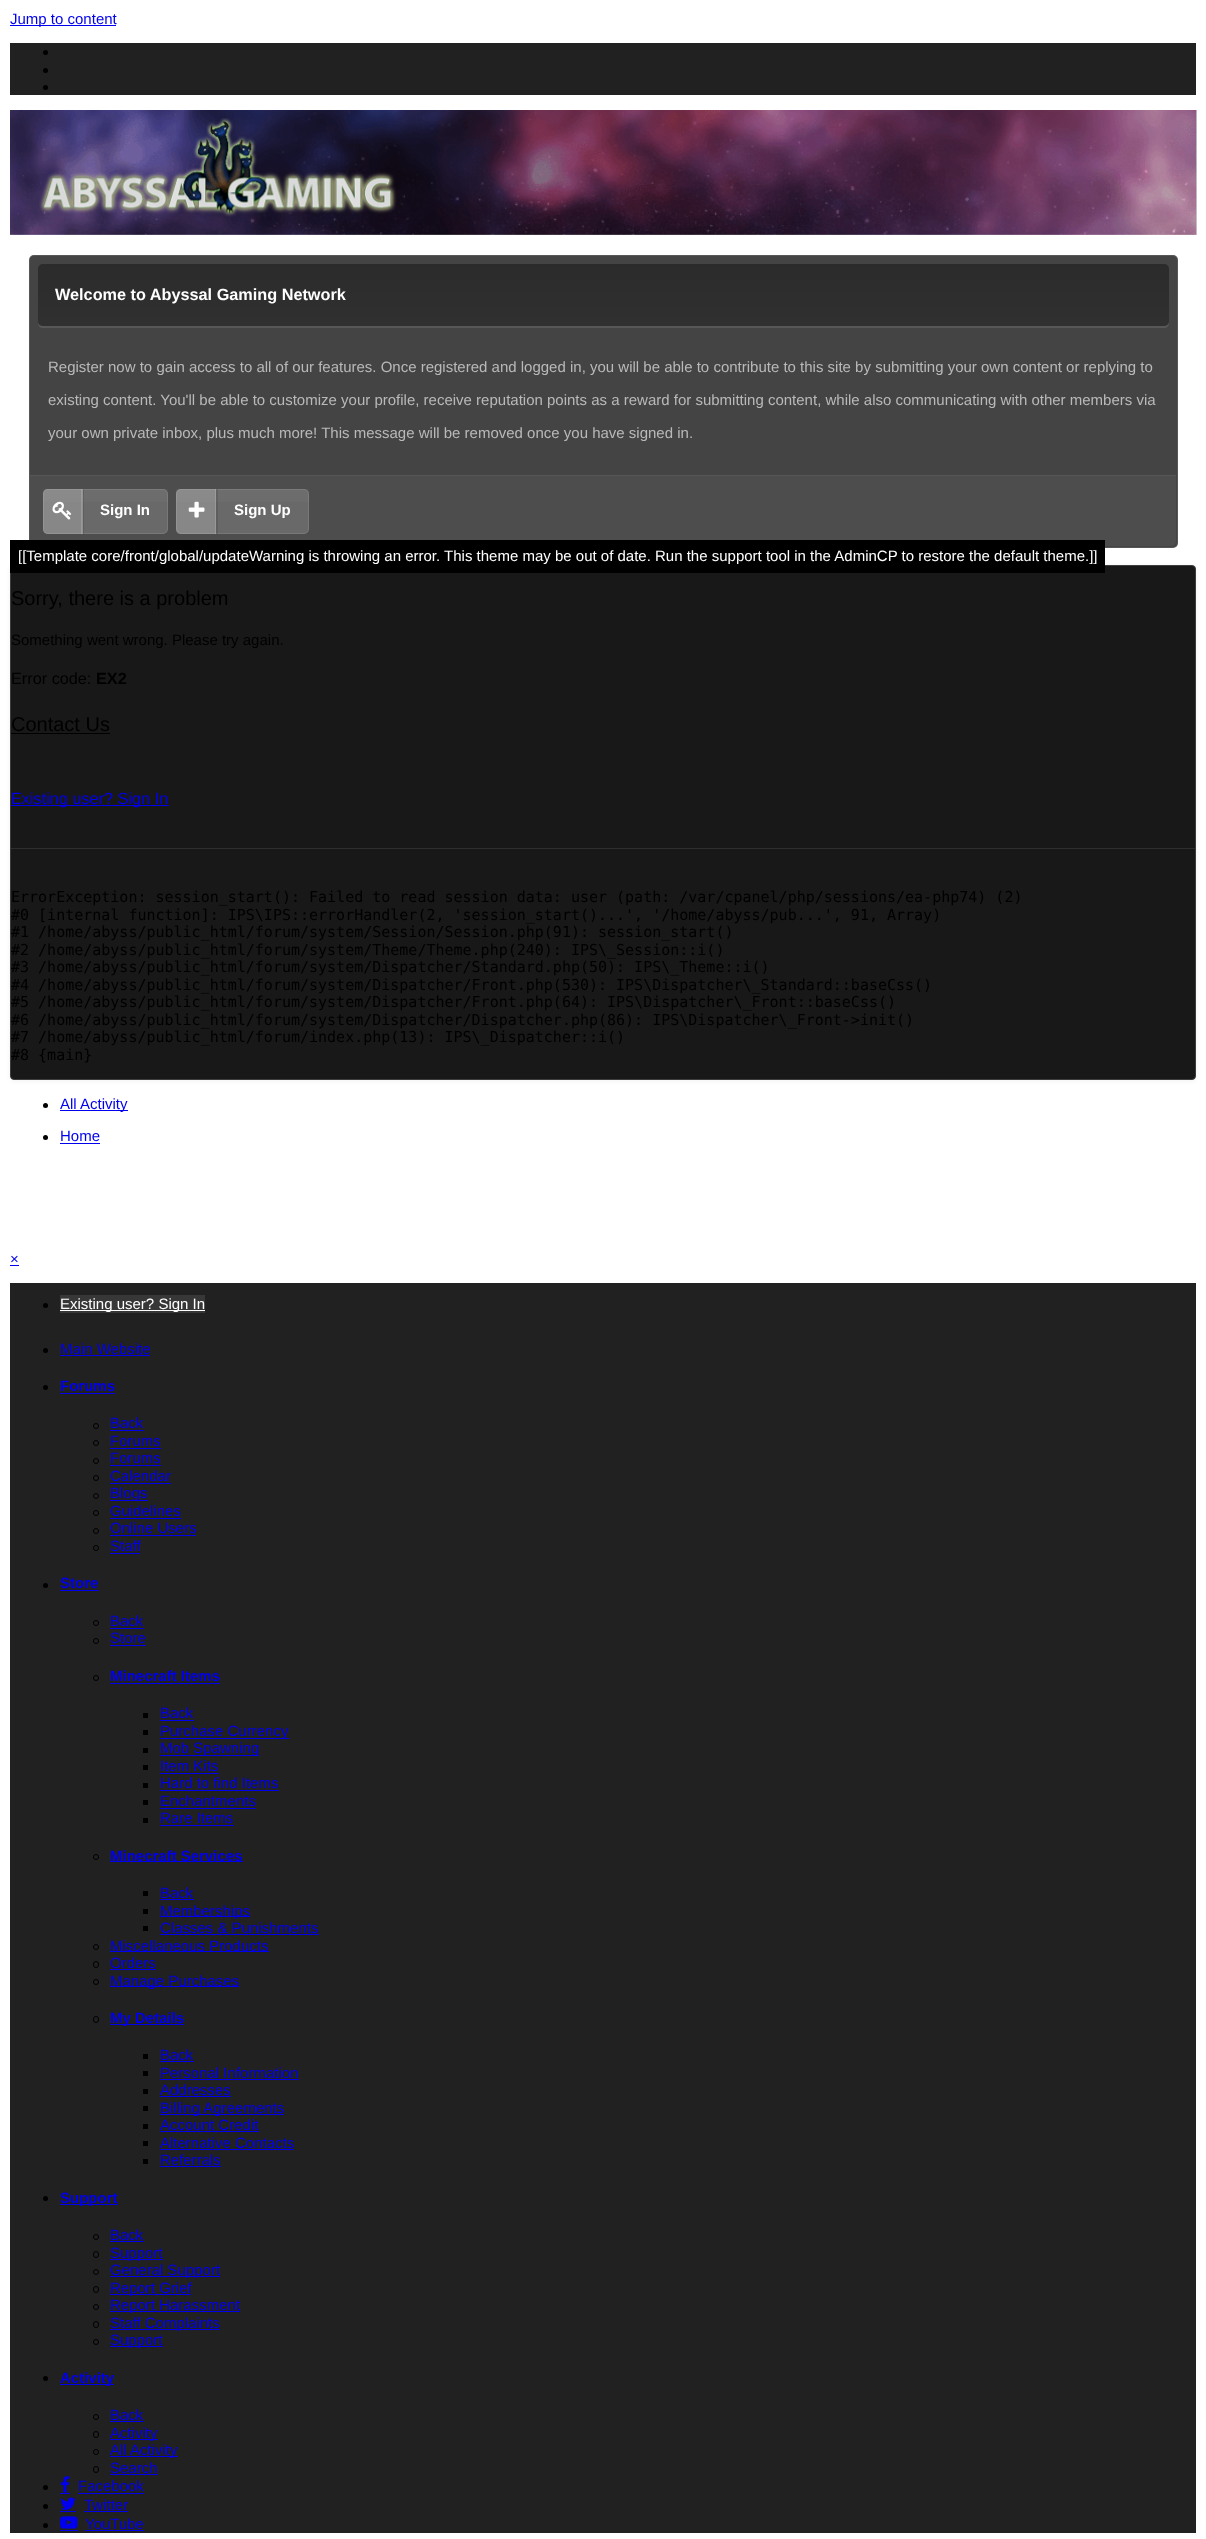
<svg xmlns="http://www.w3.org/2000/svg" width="1206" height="2539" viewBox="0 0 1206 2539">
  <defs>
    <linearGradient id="g1" gradientUnits="userSpaceOnUse" x1="603" y1="264" x2="603" y2="326"><stop offset="0" stop-color="#000000" stop-opacity="0.1"/><stop offset="1" stop-color="#000000" stop-opacity="0"/></linearGradient>
    <linearGradient id="g2" gradientUnits="userSpaceOnUse" x1="105" y1="489" x2="105" y2="534"><stop offset="0" stop-color="#ffffff" stop-opacity="0.03"/><stop offset="1" stop-color="#ffffff" stop-opacity="0"/></linearGradient>
    <linearGradient id="g3" gradientUnits="userSpaceOnUse" x1="243" y1="489" x2="243" y2="534"><stop offset="0" stop-color="#ffffff" stop-opacity="0.03"/><stop offset="1" stop-color="#ffffff" stop-opacity="0"/></linearGradient>
    <filter id="blur1" x="-50%" y="-200%" width="200%" height="500%"><feGaussianBlur stdDeviation="2.5"/></filter>
  </defs>
  <rect width="100%" height="100%" fill="#ffffff"/>
  <rect x="10" y="25" width="106" height="1" fill="#0000ee"/>
  <text x="10" y="24" font-family="Liberation Sans" font-size="15" fill="#0000ee">Jump to content</text>
  <rect x="10" y="43" width="1186" height="52" fill="#212121"/>
  <circle cx="45.5" cy="52.5" r="2.5" fill="#000000"/>
  <circle cx="45.5" cy="70.5" r="2.5" fill="#000000"/>
  <circle cx="45.5" cy="87.5" r="2.5" fill="#000000"/>
  <image x="10" y="110" width="1187" height="125" href="img1.png"/>
  <image x="10" y="110" width="1187" height="125" href="img2.png"/>
  <rect x="10" y="234" width="1186" height="1" fill="#ffffff" fill-opacity="0.15"/>
  <image x="39" y="118" width="358" height="99" href="img3.png"/>
  <rect x="29" y="255" width="1149" height="293" rx="5" fill="#444444"/>
  <rect x="29.5" y="255.5" width="1148" height="292" rx="4.5" fill="none" stroke="#ffffff" stroke-opacity="0.1"/>
  <path d="M38 323C38 326 40 328 43 328H1164C1167 328 1169 326 1169 323V268V321C1169 324 1167 326 1164 326H42C41 326 39 325 38 323Z" fill="#575757"/>
  <rect x="38" y="264" width="1131" height="62" rx="5" fill="#303030"/>
  <rect x="38" y="264" width="1131" height="62" rx="5" fill="url(#g1)"/>
  <text x="55" y="300" font-family="Liberation Sans" font-size="16.25" font-weight="bold" fill="#ffffff">Welcome to Abyssal Gaming Network</text>
  <text x="48" y="372" font-family="Liberation Sans" font-size="15" fill="#b9b9b9">Register now to gain access to all of our features. Once registered and logged in, you will be able to contribute to this site by submitting your own content or replying to</text>
  <text x="48" y="405" font-family="Liberation Sans" font-size="15" fill="#b9b9b9">existing content. You'll be able to customize your profile, receive reputation points as a reward for submitting content, while also communicating with other members via</text>
  <text x="48" y="438" font-family="Liberation Sans" font-size="15" fill="#b9b9b9">your own private inbox, plus much more! This message will be removed once you have signed in.</text>
  <path d="M30 475H1176V541C1176 544 1174 546 1171 546H35C32 546 30 544 30 541Z" fill="#4d4d4d"/>
  <rect x="30" y="475" width="1146" height="1" fill="#565656"/>
  <rect x="43" y="489" width="125" height="45" rx="5" fill="#696969"/>
  <rect x="43" y="489" width="125" height="13" fill="url(#g2)"/>
  <rect x="43.5" y="489.5" width="124" height="44" rx="4.5" fill="none" stroke="#ffffff" stroke-opacity="0.1"/>
  <path d="M47 534H84V489H82V534Z" fill="#000000" fill-opacity="0.1"/>
  <path d="M47 489H83V534H47C45 534 43 532 43 530V493C43 491 45 489 47 489Z" fill="#ffffff" fill-opacity="0.2"/>
  <rect x="81" y="489" width="2" height="45" fill="#ffffff" fill-opacity="0.15"/>
  <image x="52" y="501" width="20" height="19" href="img4.png"/>
  <text x="100" y="515" font-family="Liberation Sans" font-size="15" font-weight="bold" fill="#ffffff">Sign In</text>
  <rect x="176" y="489" width="133" height="45" rx="5" fill="#696969"/>
  <rect x="176" y="489" width="133" height="13" fill="url(#g3)"/>
  <rect x="176.5" y="489.5" width="132" height="44" rx="4.5" fill="none" stroke="#ffffff" stroke-opacity="0.1"/>
  <path d="M181 534H218V489H216V534Z" fill="#000000" fill-opacity="0.1"/>
  <path d="M180 489H216V534H180C178 534 176 532 176 530V493C176 491 178 489 180 489Z" fill="#ffffff" fill-opacity="0.2"/>
  <rect x="215" y="489" width="1" height="45" fill="#ffffff" fill-opacity="0.15"/>
  <image x="188" y="501" width="17" height="17" href="img5.png"/>
  <text x="234" y="515" font-family="Liberation Sans" font-size="15" font-weight="bold" fill="#ffffff">Sign Up</text>
  <rect x="10" y="566" width="1186" height="515" rx="4" fill="#000000" fill-opacity="0.05" filter="url(#blur1)"/>
  <rect x="10.5" y="565.5" width="1185" height="514" rx="3.5" fill="#181818" stroke="#3d3d3d"/>
  <rect x="10" y="540" width="1095" height="33" fill="#000000"/>
  <text x="18" y="561" font-family="Liberation Sans" font-size="15" fill="#ffffff">[[Template core/front/global/updateWarning is throwing an error. This theme may be out of date. Run the support tool in the AdminCP to restore the default theme.]]</text>
  <text x="11" y="605" font-family="Liberation Sans" font-size="20" fill="#000000">Sorry, there is a problem</text>
  <text x="11" y="645" font-family="Liberation Sans" font-size="15" fill="#000000">Something went wrong. Please try again.</text>
  <text x="11" y="684" font-family="Liberation Sans" font-size="16.25" fill="#000000">Error code:</text>
  <text x="96" y="684" font-family="Liberation Sans" font-size="16.25" font-weight="bold" fill="#000000">EX2</text>
  <text x="11" y="731" font-family="Liberation Sans" font-size="20" fill="#000000">Contact Us</text>
  <rect x="11" y="733" width="99" height="1" fill="#000000"/>
  <rect x="11" y="805" width="158" height="1" fill="#0000ee"/>
  <text x="11" y="804" font-family="Liberation Sans" font-size="16.25" fill="#0000ee">Existing user? Sign In</text>
  <rect x="11" y="848" width="1184" height="1" fill="#2e2e2e"/>
  <text x="11" y="902" font-family="DejaVu Sans Mono" font-size="15" fill="#000000">ErrorException: session_start(): Failed to read session data: user (path: /var/cpanel/php/sessions/ea-php74) (2)</text>
  <text x="11" y="920" font-family="DejaVu Sans Mono" font-size="15" fill="#000000">#0 [internal function]: IPS\IPS::errorHandler(2, 'session_start()...', '/home/abyss/pub...', 91, Array)</text>
  <text x="11" y="937" font-family="DejaVu Sans Mono" font-size="15" fill="#000000">#1 /home/abyss/public_html/forum/system/Session/Session.php(91): session_start()</text>
  <text x="11" y="955" font-family="DejaVu Sans Mono" font-size="15" fill="#000000">#2 /home/abyss/public_html/forum/system/Theme/Theme.php(240): IPS\_Session::i()</text>
  <text x="11" y="972" font-family="DejaVu Sans Mono" font-size="15" fill="#000000">#3 /home/abyss/public_html/forum/system/Dispatcher/Standard.php(50): IPS\_Theme::i()</text>
  <text x="11" y="990" font-family="DejaVu Sans Mono" font-size="15" fill="#000000">#4 /home/abyss/public_html/forum/system/Dispatcher/Front.php(530): IPS\Dispatcher\_Standard::baseCss()</text>
  <text x="11" y="1007" font-family="DejaVu Sans Mono" font-size="15" fill="#000000">#5 /home/abyss/public_html/forum/system/Dispatcher/Front.php(64): IPS\Dispatcher\_Front::baseCss()</text>
  <text x="11" y="1025" font-family="DejaVu Sans Mono" font-size="15" fill="#000000">#6 /home/abyss/public_html/forum/system/Dispatcher/Dispatcher.php(86): IPS\Dispatcher\_Front-&gt;init()</text>
  <text x="11" y="1042" font-family="DejaVu Sans Mono" font-size="15" fill="#000000">#7 /home/abyss/public_html/forum/index.php(13): IPS\_Dispatcher::i()</text>
  <text x="11" y="1060" font-family="DejaVu Sans Mono" font-size="15" fill="#000000">#8 {main}</text>
  <circle cx="45.5" cy="1105.5" r="2.5" fill="#000000"/>
  <rect x="60" y="1110" width="68" height="1" fill="#0000ee"/>
  <text x="60" y="1109" font-family="Liberation Sans" font-size="15" fill="#0000ee">All Activity</text>
  <circle cx="45.5" cy="1137.5" r="2.5" fill="#000000"/>
  <text x="60" y="1141" font-family="Liberation Sans" font-size="15" fill="#0000ee">Home</text>
  <rect x="60" y="1143" width="40" height="1" fill="#0000ee"/>
  <text x="10" y="1264" font-family="Liberation Sans" font-size="15" fill="#0000ee">×</text>
  <rect x="10" y="1265" width="9" height="1" fill="#0000ee"/>
  <rect x="10" y="1283" width="1186" height="1250" fill="#212121"/>
  <circle cx="45.5" cy="1305.5" r="2.5" fill="#000000"/>
  <rect x="60" y="1295" width="145" height="18" fill="#373737"/>
  <rect x="60" y="1310" width="145" height="1" fill="#ffffff"/>
  <text x="60" y="1309" font-family="Liberation Sans" font-size="15" fill="#ffffff">Existing user? Sign In</text>
  <circle cx="45.5" cy="1350.5" r="2.5" fill="#000000"/>
  <text x="60" y="1354" font-family="Liberation Sans" font-size="15" fill="#0000ee">Main Website</text>
  <rect x="60" y="1355" width="90" height="1" fill="#0000ee"/>
  <circle cx="45.5" cy="1387.5" r="2.5" fill="#000000"/>
  <text x="60" y="1391" font-family="Liberation Sans" font-size="15" font-weight="bold" fill="#0000ee">Forums</text>
  <rect x="60" y="1393" width="55" height="1" fill="#0000ee"/>
  <circle cx="96" cy="1426" r="2.5" fill="none" stroke="#000000"/>
  <text x="110" y="1428" font-family="Liberation Sans" font-size="15" fill="#0000ee">Back</text>
  <rect x="110" y="1430" width="34" height="1" fill="#0000ee"/>
  <circle cx="96" cy="1443" r="2.5" fill="none" stroke="#000000"/>
  <text x="110" y="1446" font-family="Liberation Sans" font-size="15" fill="#0000ee">Forums</text>
  <rect x="110" y="1448" width="51" height="1" fill="#0000ee"/>
  <circle cx="96" cy="1461" r="2.5" fill="none" stroke="#000000"/>
  <text x="110" y="1463" font-family="Liberation Sans" font-size="15" fill="#0000ee">Forums</text>
  <rect x="110" y="1465" width="51" height="1" fill="#0000ee"/>
  <circle cx="96" cy="1478" r="2.5" fill="none" stroke="#000000"/>
  <text x="110" y="1481" font-family="Liberation Sans" font-size="15" fill="#0000ee">Calendar</text>
  <rect x="110" y="1483" width="61" height="1" fill="#0000ee"/>
  <circle cx="96" cy="1496" r="2.5" fill="none" stroke="#000000"/>
  <rect x="110" y="1500" width="38" height="1" fill="#0000ee"/>
  <text x="110" y="1498" font-family="Liberation Sans" font-size="15" fill="#0000ee">Blogs</text>
  <circle cx="96" cy="1513" r="2.5" fill="none" stroke="#000000"/>
  <text x="110" y="1516" font-family="Liberation Sans" font-size="15" fill="#0000ee">Guidelines</text>
  <rect x="110" y="1518" width="71" height="1" fill="#0000ee"/>
  <circle cx="96" cy="1531" r="2.5" fill="none" stroke="#000000"/>
  <text x="110" y="1533" font-family="Liberation Sans" font-size="15" fill="#0000ee">Online Users</text>
  <rect x="110" y="1535" width="86" height="1" fill="#0000ee"/>
  <circle cx="96" cy="1548" r="2.5" fill="none" stroke="#000000"/>
  <text x="110" y="1551" font-family="Liberation Sans" font-size="15" fill="#0000ee">Staff</text>
  <rect x="110" y="1553" width="30" height="1" fill="#0000ee"/>
  <circle cx="45.5" cy="1585.5" r="2.5" fill="#000000"/>
  <text x="60" y="1588" font-family="Liberation Sans" font-size="15" font-weight="bold" fill="#0000ee">Store</text>
  <rect x="60" y="1590" width="39" height="1" fill="#0000ee"/>
  <circle cx="96" cy="1623" r="2.5" fill="none" stroke="#000000"/>
  <text x="110" y="1626" font-family="Liberation Sans" font-size="15" fill="#0000ee">Back</text>
  <rect x="110" y="1628" width="34" height="1" fill="#0000ee"/>
  <circle cx="96" cy="1641" r="2.5" fill="none" stroke="#000000"/>
  <text x="110" y="1643" font-family="Liberation Sans" font-size="15" fill="#0000ee">Store</text>
  <rect x="110" y="1645" width="36" height="1" fill="#0000ee"/>
  <circle cx="96" cy="1678" r="2.5" fill="none" stroke="#000000"/>
  <text x="110" y="1681" font-family="Liberation Sans" font-size="15" font-weight="bold" fill="#0000ee">Minecraft Items</text>
  <rect x="110" y="1683" width="110" height="1" fill="#0000ee"/>
  <rect x="143" y="1713" width="5" height="5" fill="#000000"/>
  <text x="160" y="1718" font-family="Liberation Sans" font-size="15" fill="#0000ee">Back</text>
  <rect x="160" y="1720" width="34" height="1" fill="#0000ee"/>
  <rect x="143" y="1730" width="5" height="5" fill="#000000"/>
  <rect x="160" y="1738" width="129" height="1" fill="#0000ee"/>
  <text x="160" y="1736" font-family="Liberation Sans" font-size="15" fill="#0000ee">Purchase Currency</text>
  <rect x="143" y="1748" width="5" height="5" fill="#000000"/>
  <rect x="160" y="1755" width="99" height="1" fill="#0000ee"/>
  <text x="160" y="1753" font-family="Liberation Sans" font-size="15" fill="#0000ee">Mob Spawning</text>
  <rect x="143" y="1765" width="5" height="5" fill="#000000"/>
  <text x="160" y="1771" font-family="Liberation Sans" font-size="15" fill="#0000ee">Item Kits</text>
  <rect x="160" y="1773" width="59" height="1" fill="#0000ee"/>
  <rect x="143" y="1783" width="5" height="5" fill="#000000"/>
  <text x="160" y="1788" font-family="Liberation Sans" font-size="15" fill="#0000ee">Hard to find Items</text>
  <rect x="160" y="1790" width="119" height="1" fill="#0000ee"/>
  <rect x="143" y="1800" width="5" height="5" fill="#000000"/>
  <text x="160" y="1806" font-family="Liberation Sans" font-size="15" fill="#0000ee">Enchantments</text>
  <rect x="160" y="1808" width="96" height="1" fill="#0000ee"/>
  <rect x="143" y="1818" width="5" height="5" fill="#000000"/>
  <text x="160" y="1823" font-family="Liberation Sans" font-size="15" fill="#0000ee">Rare Items</text>
  <rect x="160" y="1825" width="74" height="1" fill="#0000ee"/>
  <circle cx="96" cy="1857" r="2.5" fill="none" stroke="#000000"/>
  <rect x="110" y="1861" width="133" height="1" fill="#0000ee"/>
  <text x="110" y="1861" font-family="Liberation Sans" font-size="15" font-weight="bold" fill="#0000ee">Minecraft Services</text>
  <rect x="143" y="1891" width="5" height="5" fill="#000000"/>
  <text x="160" y="1898" font-family="Liberation Sans" font-size="15" fill="#0000ee">Back</text>
  <rect x="160" y="1899" width="34" height="1" fill="#0000ee"/>
  <rect x="143" y="1909" width="5" height="5" fill="#000000"/>
  <rect x="160" y="1916" width="90" height="1" fill="#0000ee"/>
  <text x="160" y="1916" font-family="Liberation Sans" font-size="15" fill="#0000ee">Memberships</text>
  <rect x="143" y="1926" width="5" height="5" fill="#000000"/>
  <text x="160" y="1933" font-family="Liberation Sans" font-size="15" fill="#0000ee">Classes &amp; Punishments</text>
  <rect x="160" y="1934" width="159" height="1" fill="#0000ee"/>
  <circle cx="96" cy="1947" r="2.5" fill="none" stroke="#000000"/>
  <rect x="110" y="1951" width="159" height="1" fill="#0000ee"/>
  <text x="110" y="1951" font-family="Liberation Sans" font-size="15" fill="#0000ee">Miscellaneous Products</text>
  <rect x="93.5" y="1961.5" width="5" height="6" rx="2.5" fill="none" stroke="#000000"/>
  <text x="110" y="1968" font-family="Liberation Sans" font-size="15" fill="#0000ee">Orders</text>
  <rect x="110" y="1969" width="46" height="1" fill="#0000ee"/>
  <circle cx="96" cy="1982" r="2.5" fill="none" stroke="#000000"/>
  <rect x="110" y="1986" width="129" height="1" fill="#0000ee"/>
  <text x="110" y="1986" font-family="Liberation Sans" font-size="15" fill="#0000ee">Manage Purchases</text>
  <rect x="93.5" y="2016.5" width="5" height="6" rx="2.5" fill="none" stroke="#000000"/>
  <rect x="110" y="2024" width="74" height="1" fill="#0000ee"/>
  <text x="110" y="2023" font-family="Liberation Sans" font-size="15" font-weight="bold" fill="#0000ee">My Details</text>
  <rect x="143" y="2054" width="5" height="5" fill="#000000"/>
  <text x="160" y="2060" font-family="Liberation Sans" font-size="15" fill="#0000ee">Back</text>
  <rect x="160" y="2061" width="34" height="1" fill="#0000ee"/>
  <rect x="143" y="2071" width="5" height="5" fill="#000000"/>
  <text x="160" y="2078" font-family="Liberation Sans" font-size="15" fill="#0000ee">Personal Information</text>
  <rect x="160" y="2079" width="139" height="1" fill="#0000ee"/>
  <rect x="143" y="2089" width="5" height="5" fill="#000000"/>
  <text x="160" y="2095" font-family="Liberation Sans" font-size="15" fill="#0000ee">Addresses</text>
  <rect x="160" y="2096" width="71" height="1" fill="#0000ee"/>
  <rect x="143" y="2106" width="5" height="5" fill="#000000"/>
  <rect x="160" y="2114" width="124" height="1" fill="#0000ee"/>
  <text x="160" y="2113" font-family="Liberation Sans" font-size="15" fill="#0000ee">Billing Agreements</text>
  <rect x="143" y="2124" width="5" height="5" fill="#000000"/>
  <text x="160" y="2130" font-family="Liberation Sans" font-size="15" fill="#0000ee">Account Credit</text>
  <rect x="160" y="2131" width="99" height="1" fill="#0000ee"/>
  <rect x="143" y="2141" width="5" height="5" fill="#000000"/>
  <text x="160" y="2148" font-family="Liberation Sans" font-size="15" fill="#0000ee">Alternative Contacts</text>
  <rect x="160" y="2149" width="134" height="1" fill="#0000ee"/>
  <rect x="143" y="2159" width="5" height="5" fill="#000000"/>
  <text x="160" y="2165" font-family="Liberation Sans" font-size="15" fill="#0000ee">Referrals</text>
  <rect x="160" y="2166" width="61" height="1" fill="#0000ee"/>
  <circle cx="45.5" cy="2198.5" r="2.5" fill="#000000"/>
  <rect x="60" y="2204" width="58" height="1" fill="#0000ee"/>
  <text x="60" y="2203" font-family="Liberation Sans" font-size="15" font-weight="bold" fill="#0000ee">Support</text>
  <circle cx="96" cy="2237" r="2.5" fill="none" stroke="#000000"/>
  <text x="110" y="2240" font-family="Liberation Sans" font-size="15" fill="#0000ee">Back</text>
  <rect x="110" y="2241" width="34" height="1" fill="#0000ee"/>
  <rect x="93.5" y="2251.5" width="5" height="6" rx="2.5" fill="none" stroke="#000000"/>
  <rect x="110" y="2259" width="53" height="1" fill="#0000ee"/>
  <text x="110" y="2258" font-family="Liberation Sans" font-size="15" fill="#0000ee">Support</text>
  <circle cx="96" cy="2272" r="2.5" fill="none" stroke="#000000"/>
  <rect x="110" y="2276" width="110" height="1" fill="#0000ee"/>
  <text x="110" y="2275" font-family="Liberation Sans" font-size="15" fill="#0000ee">General Support</text>
  <rect x="93.5" y="2286.5" width="5" height="6" rx="2.5" fill="none" stroke="#000000"/>
  <rect x="110" y="2294" width="81" height="1" fill="#0000ee"/>
  <text x="110" y="2293" font-family="Liberation Sans" font-size="15" fill="#0000ee">Report Grief</text>
  <circle cx="96" cy="2307" r="2.5" fill="none" stroke="#000000"/>
  <rect x="110" y="2311" width="130" height="1" fill="#0000ee"/>
  <text x="110" y="2310" font-family="Liberation Sans" font-size="15" fill="#0000ee">Report Harassment</text>
  <rect x="93.5" y="2321.5" width="5" height="6" rx="2.5" fill="none" stroke="#000000"/>
  <rect x="110" y="2329" width="110" height="1" fill="#0000ee"/>
  <text x="110" y="2328" font-family="Liberation Sans" font-size="15" fill="#0000ee">Staff Complaints</text>
  <circle cx="96" cy="2342" r="2.5" fill="none" stroke="#000000"/>
  <rect x="110" y="2346" width="53" height="1" fill="#0000ee"/>
  <text x="110" y="2345" font-family="Liberation Sans" font-size="15" fill="#0000ee">Support</text>
  <circle cx="45.5" cy="2378.5" r="2.5" fill="#000000"/>
  <rect x="60" y="2384" width="54" height="1" fill="#0000ee"/>
  <text x="60" y="2383" font-family="Liberation Sans" font-size="15" font-weight="bold" fill="#0000ee">Activity</text>
  <circle cx="96" cy="2417" r="2.5" fill="none" stroke="#000000"/>
  <text x="110" y="2420" font-family="Liberation Sans" font-size="15" fill="#0000ee">Back</text>
  <rect x="110" y="2421" width="34" height="1" fill="#0000ee"/>
  <rect x="93.5" y="2431.5" width="5" height="6" rx="2.5" fill="none" stroke="#000000"/>
  <rect x="110" y="2439" width="48" height="1" fill="#0000ee"/>
  <text x="110" y="2438" font-family="Liberation Sans" font-size="15" fill="#0000ee">Activity</text>
  <circle cx="96" cy="2452" r="2.5" fill="none" stroke="#000000"/>
  <rect x="110" y="2456" width="68" height="1" fill="#0000ee"/>
  <text x="110" y="2455" font-family="Liberation Sans" font-size="15" fill="#0000ee">All Activity</text>
  <rect x="93.5" y="2466.5" width="5" height="6" rx="2.5" fill="none" stroke="#000000"/>
  <text x="110" y="2473" font-family="Liberation Sans" font-size="15" fill="#0000ee">Search</text>
  <rect x="110" y="2474" width="48" height="1" fill="#0000ee"/>
  <circle cx="45.5" cy="2487.5" r="2.5" fill="#000000"/>
  <image x="60" y="2476" width="10" height="17" href="img6.png"/>
  <text x="78" y="2491" font-family="Liberation Sans" font-size="15" fill="#0000ee">Facebook</text>
  <rect x="60" y="2493" width="10" height="1" fill="#0000ee"/>
  <rect x="78" y="2493" width="66" height="1" fill="#0000ee"/>
  <circle cx="45.5" cy="2506.5" r="2.5" fill="#000000"/>
  <image x="60" y="2497" width="16" height="13" href="img7.png"/>
  <text x="84" y="2510" font-family="Liberation Sans" font-size="15" fill="#0000ee">Twitter</text>
  <rect x="60" y="2511" width="16" height="1" fill="#0000ee"/>
  <rect x="84" y="2511" width="44" height="1" fill="#0000ee"/>
  <circle cx="45.5" cy="2525.5" r="2.5" fill="#000000"/>
  <image x="60" y="2516" width="18" height="13" href="img8.png"/>
  <text x="85" y="2529" font-family="Liberation Sans" font-size="15" fill="#0000ee">YouTube</text>
  <rect x="60" y="2530" width="18" height="1" fill="#0000ee"/>
  <rect x="85" y="2530" width="59" height="1" fill="#0000ee"/>
</svg>
